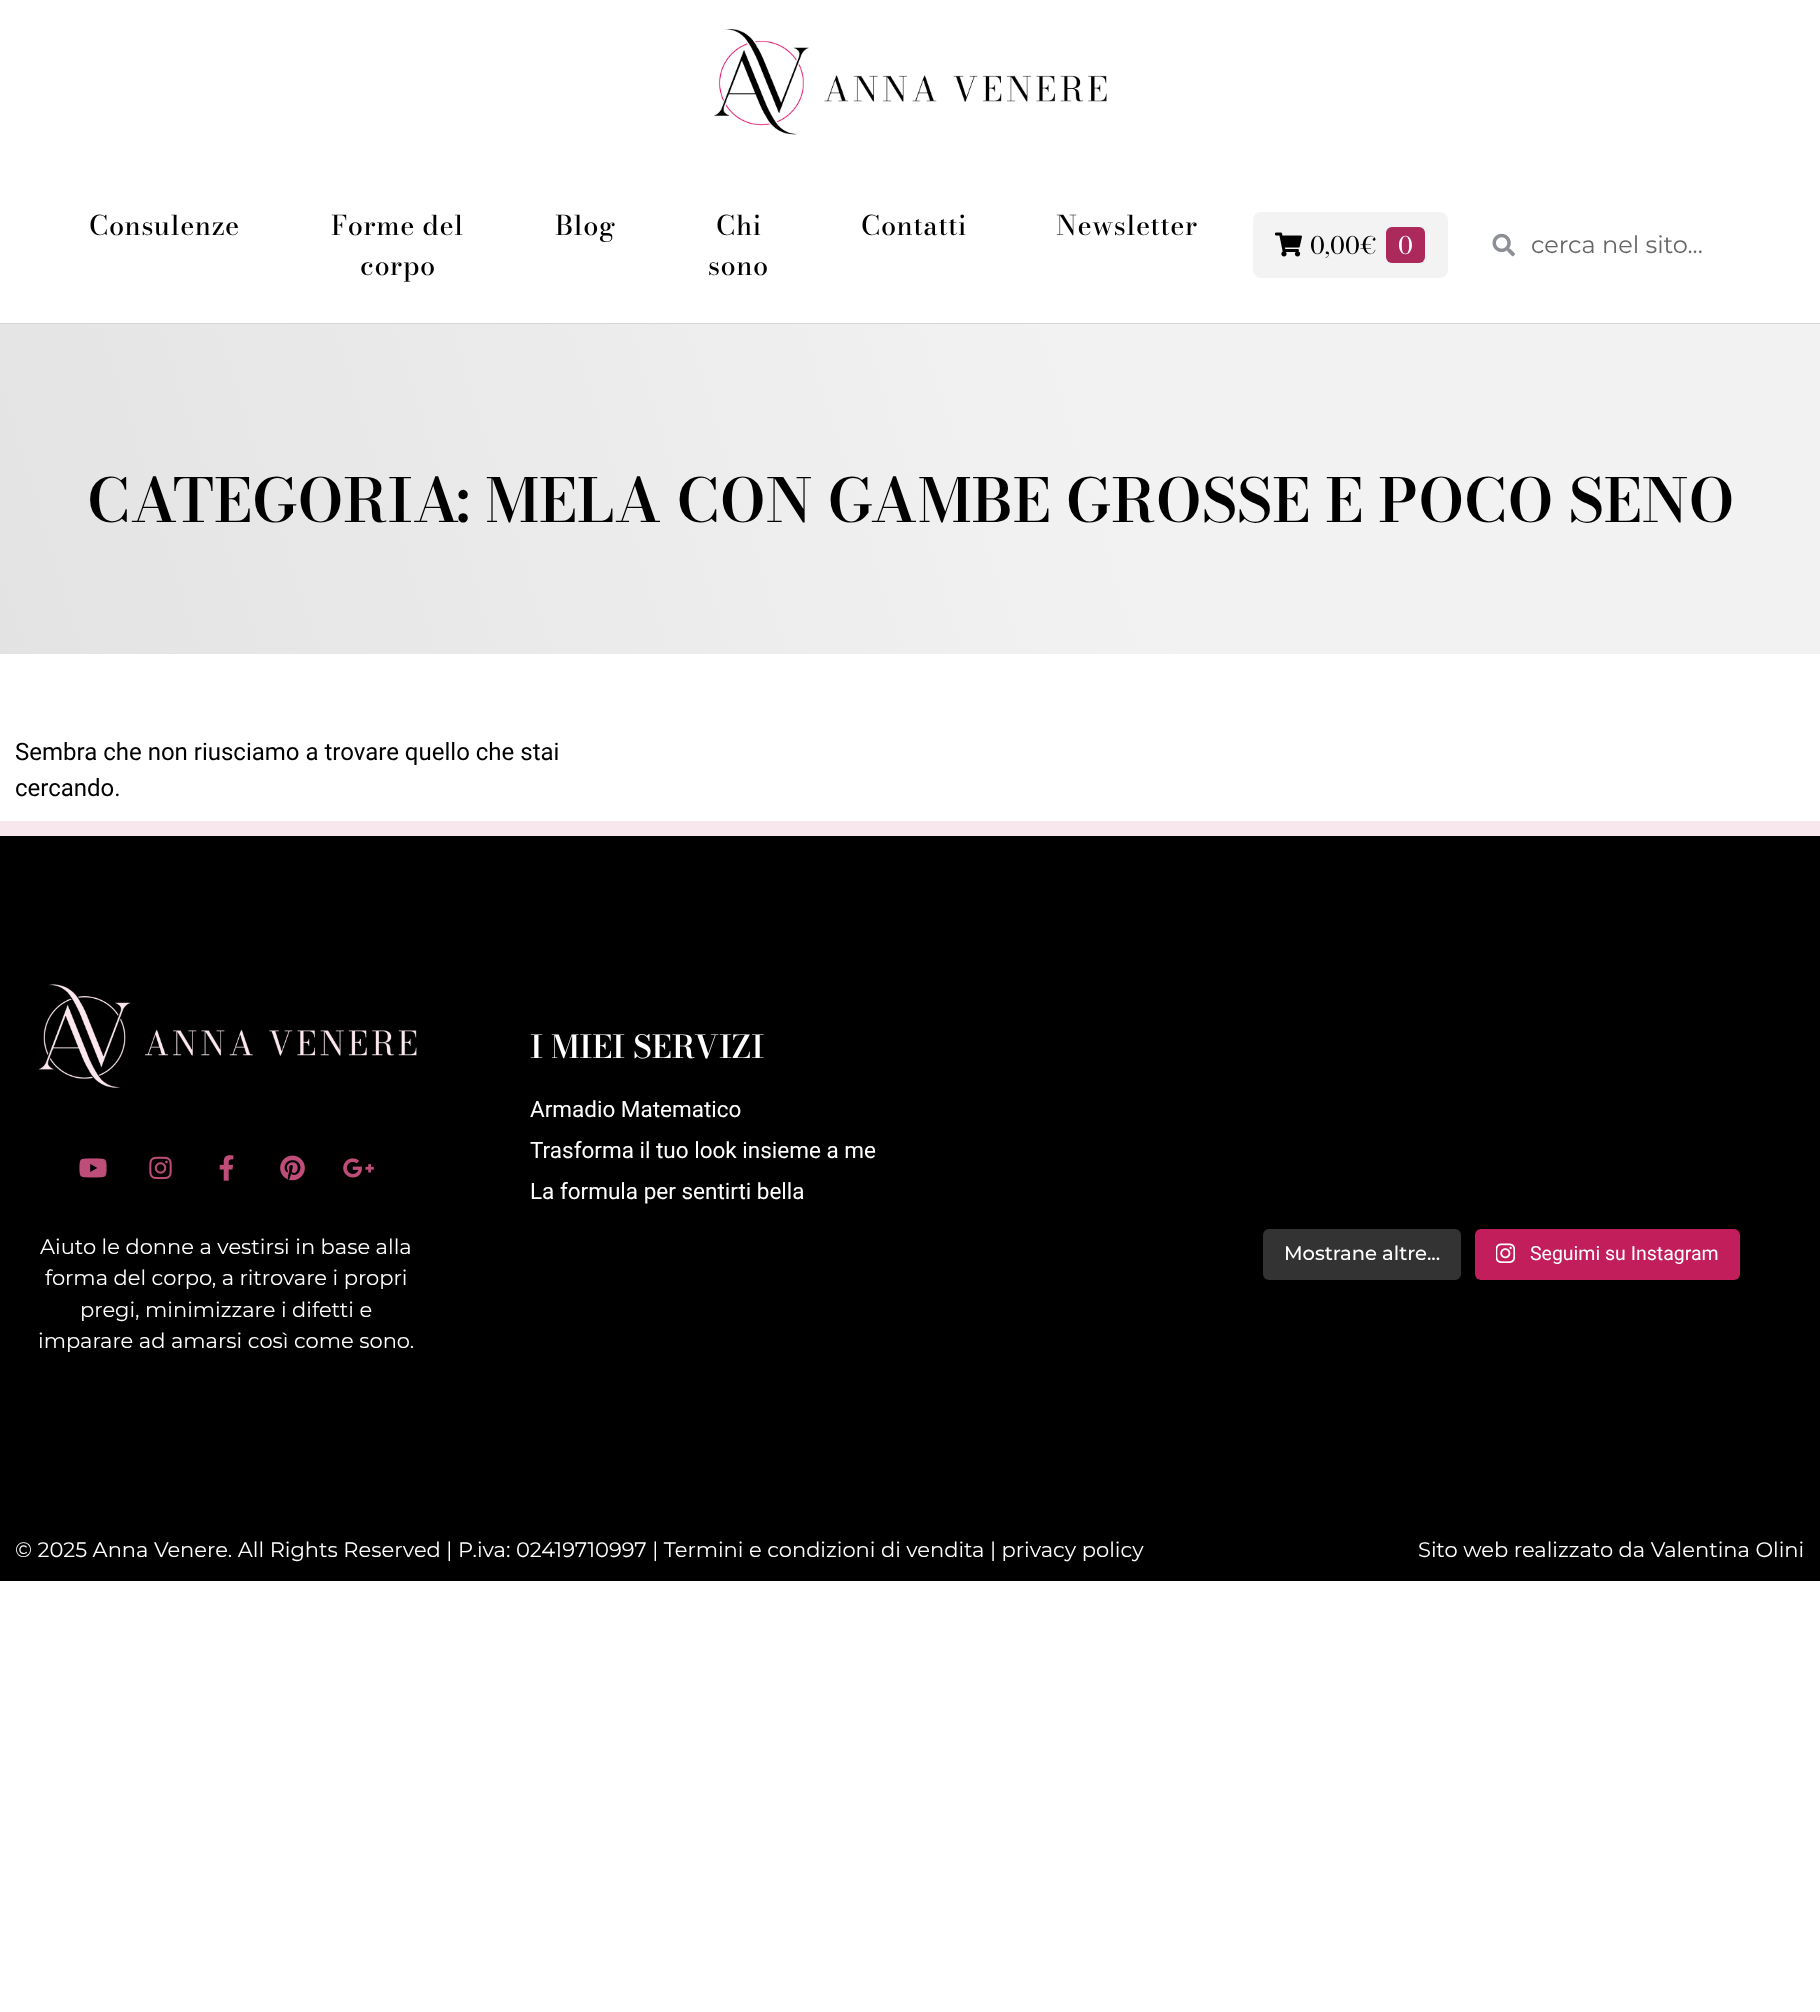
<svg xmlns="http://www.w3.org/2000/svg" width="1820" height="2012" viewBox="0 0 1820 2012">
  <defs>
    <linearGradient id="g1" gradientUnits="userSpaceOnUse" x1="32" y1="758" x2="1789" y2="220"><stop offset="0" stop-color="#e3e3e3"/><stop offset="0.61" stop-color="#f2f2f2"/></linearGradient>
  </defs>
  <rect width="100%" height="100%" fill="#ffffff"/>
  <image x="714" y="28" width="393" height="107" href="img1.png"/>
  <rect x="0" y="323" width="1820" height="1" fill="#d6d6d6"/>
  <text x="89" y="235" font-family="Bodoni Moda" font-size="27" font-weight="500" letter-spacing="0.5" fill="#000000">Consulenze</text>
  <text x="331" y="235" font-family="Bodoni Moda" font-size="27" font-weight="500" letter-spacing="0.5" fill="#000000">Forme del</text>
  <text x="360" y="275" font-family="Bodoni Moda" font-size="27" font-weight="500" letter-spacing="0.5" fill="#000000">corpo</text>
  <text x="555" y="235" font-family="Bodoni Moda" font-size="27" font-weight="500" letter-spacing="0.5" fill="#000000">Blog</text>
  <text x="716" y="235" font-family="Bodoni Moda" font-size="27" font-weight="500" letter-spacing="0.5" fill="#000000">Chi</text>
  <text x="708" y="275" font-family="Bodoni Moda" font-size="27" font-weight="500" letter-spacing="0.5" fill="#000000">sono</text>
  <text x="861" y="235" font-family="Bodoni Moda" font-size="27" font-weight="500" letter-spacing="0.5" fill="#000000">Contatti</text>
  <text x="1056" y="235" font-family="Bodoni Moda" font-size="27" font-weight="500" letter-spacing="0.5" fill="#000000">Newsletter</text>
  <rect x="1253" y="212" width="195" height="66" rx="8" fill="#f3f3f3"/>
  <image x="1275" y="232" width="27" height="25" href="img2.png"/>
  <text x="1310" y="254" font-family="Bodoni Moda" font-size="24" fill="#000000">0,00€</text>
  <rect x="1386" y="227" width="39" height="36" rx="6" fill="#ac295b"/>
  <text x="1398" y="254" font-family="Bodoni Moda" font-size="24" fill="#ffffff">0</text>
  <image x="1492" y="233" width="23" height="24" href="img3.png"/>
  <text x="1531" y="253" font-family="Montserrat" font-size="24" fill="#666666">cerca nel sito...</text>
  <rect x="0" y="324" width="1820" height="330" fill="url(#g1)"/>
  <text x="87" y="522" font-family="Bodoni Moda" font-size="60" font-weight="600" fill="#000000">CATEGORIA: MELA CON GAMBE GROSSE E POCO SENO</text>
  <text x="15" y="760" font-family="Roboto" font-size="24" fill="#000000">Sembra che non riusciamo a trovare quello che stai</text>
  <text x="15" y="796" font-family="Roboto" font-size="24" fill="#000000">cercando.</text>
  <rect x="0" y="836" width="1820" height="745" fill="#000000"/>
  <rect x="0" y="821" width="1820" height="15" fill="#f9e7ee"/>
  <text x="530" y="1058" font-family="Bodoni Moda" font-size="31.5" font-weight="600" fill="#ffffff">I MIEI SERVIZI</text>
  <text x="530" y="1117" font-family="Roboto" font-size="22.5" fill="#ffffff">Armadio Matematico</text>
  <text x="530" y="1158" font-family="Roboto" font-size="22.5" fill="#ffffff">Trasforma il tuo look insieme a me</text>
  <text x="530" y="1199" font-family="Roboto" font-size="22.5" fill="#ffffff">La formula per sentirti bella</text>
  <image x="38" y="984" width="379" height="104" href="img4.png"/>
  <image x="79" y="1158" width="28" height="20" href="img5.png"/>
  <image x="149" y="1156" width="23" height="24" href="img6.png"/>
  <image x="219" y="1155" width="15" height="26" href="img7.png"/>
  <image x="280" y="1155" width="25" height="26" href="img8.png"/>
  <image x="343" y="1158" width="31" height="20" href="img9.png"/>
  <text x="40" y="1254" font-family="Montserrat" font-size="21" fill="#ffffff">Aiuto le donne a vestirsi in base alla</text>
  <text x="45" y="1285" font-family="Montserrat" font-size="21" fill="#ffffff">forma del corpo, a ritrovare i propri</text>
  <text x="80" y="1317" font-family="Montserrat" font-size="21" fill="#ffffff">pregi, minimizzare i difetti e</text>
  <text x="38" y="1348" font-family="Montserrat" font-size="21" fill="#ffffff">imparare ad amarsi così come sono.</text>
  <rect x="1263" y="1229" width="198" height="51" rx="6" fill="#333333"/>
  <text x="1284" y="1260" font-family="Montserrat" font-size="19.5" font-weight="500" fill="#ffffff">Mostrane altre...</text>
  <rect x="1475" y="1229" width="265" height="51" rx="6" fill="#c21e5b"/>
  <image x="1496" y="1243" width="19" height="20" href="img10.png"/>
  <text x="1530" y="1260" font-family="Roboto" font-size="19.5" fill="#ffffff">Seguimi su Instagram</text>
  <text x="15" y="1557" font-family="Montserrat" font-size="21" fill="#ffffff">© 2025 Anna Venere. All Rights Reserved | P.iva: 02419710997 | Termini e condizioni di vendita | privacy policy</text>
  <text x="1418" y="1557" font-family="Montserrat" font-size="21" fill="#ffffff">Sito web realizzato da Valentina Olini</text>
</svg>
